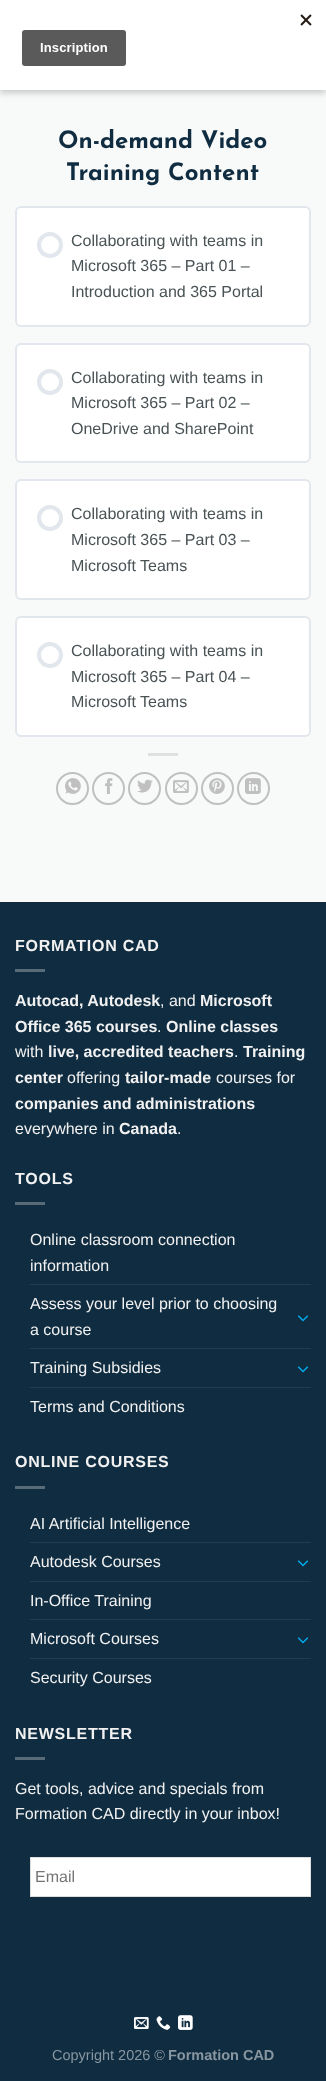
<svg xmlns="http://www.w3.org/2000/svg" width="326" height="2081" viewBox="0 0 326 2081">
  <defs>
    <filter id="blur1" x="-50%" y="-200%" width="200%" height="500%"><feGaussianBlur stdDeviation="3"/></filter>
  </defs>
  <rect width="100%" height="100%" fill="#f8f9f9"/>
  <rect x="0" y="3" width="326" height="90" fill="#000000" fill-opacity="0.2" filter="url(#blur1)"/>
  <rect x="0" y="0" width="326" height="90" fill="#ffffff"/>
  <image x="22" y="14" width="290" height="52" href="img1.png"/>
  <text x="58" y="148" font-family="Josefin Sans" font-size="24" font-weight="bold" fill="#102c40">On-demand Video</text>
  <text x="66" y="180" font-family="Josefin Sans" font-size="24" font-weight="bold" fill="#102c40">Training Content</text>
  <rect x="16" y="207" width="294" height="119" rx="5" fill="#ffffff" stroke="#e2e7ed" stroke-width="2"/>
  <circle cx="50" cy="245" r="11" fill="none" stroke="#e2e7ed" stroke-width="4"/>
  <text x="71" y="246" font-family="Liberation Sans" font-size="16" fill="#495255">Collaborating with teams in</text>
  <text x="71" y="271" font-family="Liberation Sans" font-size="16" fill="#495255">Microsoft 365 – Part 01 –</text>
  <text x="71" y="297" font-family="Liberation Sans" font-size="16" fill="#495255">Introduction and 365 Portal</text>
  <rect x="16" y="344" width="294" height="118" rx="5" fill="#ffffff" stroke="#e2e7ed" stroke-width="2"/>
  <circle cx="50" cy="382" r="11" fill="none" stroke="#e2e7ed" stroke-width="4"/>
  <text x="71" y="383" font-family="Liberation Sans" font-size="16" fill="#495255">Collaborating with teams in</text>
  <text x="71" y="408" font-family="Liberation Sans" font-size="16" fill="#495255">Microsoft 365 – Part 02 –</text>
  <text x="71" y="434" font-family="Liberation Sans" font-size="16" fill="#495255">OneDrive and SharePoint</text>
  <rect x="16" y="480" width="294" height="119" rx="5" fill="#ffffff" stroke="#e2e7ed" stroke-width="2"/>
  <circle cx="50" cy="518" r="11" fill="none" stroke="#e2e7ed" stroke-width="4"/>
  <text x="71" y="519" font-family="Liberation Sans" font-size="16" fill="#495255">Collaborating with teams in</text>
  <text x="71" y="545" font-family="Liberation Sans" font-size="16" fill="#495255">Microsoft 365 – Part 03 –</text>
  <text x="71" y="571" font-family="Liberation Sans" font-size="16" fill="#495255">Microsoft Teams</text>
  <rect x="16" y="617" width="294" height="119" rx="5" fill="#ffffff" stroke="#e2e7ed" stroke-width="2"/>
  <circle cx="50" cy="655" r="11" fill="none" stroke="#e2e7ed" stroke-width="4"/>
  <text x="71" y="656" font-family="Liberation Sans" font-size="16" fill="#495255">Collaborating with teams in</text>
  <text x="71" y="682" font-family="Liberation Sans" font-size="16" fill="#495255">Microsoft 365 – Part 04 –</text>
  <text x="71" y="707" font-family="Liberation Sans" font-size="16" fill="#495255">Microsoft Teams</text>
  <rect x="148" y="753" width="30" height="3" fill="#dfe0e0"/>
  <circle cx="72.5" cy="788.5" r="15.5" fill="none" stroke="#c0c0c0" stroke-width="2"/>
  <image x="65" y="778" width="16" height="16" href="img2.png"/>
  <circle cx="108.5" cy="788.5" r="15.5" fill="none" stroke="#c0c0c0" stroke-width="2"/>
  <image x="105" y="778" width="8" height="16" href="img3.png"/>
  <circle cx="144.5" cy="788.5" r="15.5" fill="none" stroke="#c0c0c0" stroke-width="2"/>
  <image x="137" y="779" width="16" height="14" href="img4.png"/>
  <circle cx="181.5" cy="788.5" r="15.5" fill="none" stroke="#c0c0c0" stroke-width="2"/>
  <image x="173" y="780" width="16" height="13" href="img5.png"/>
  <circle cx="217.5" cy="788.5" r="15.5" fill="none" stroke="#c0c0c0" stroke-width="2"/>
  <image x="209" y="778" width="16" height="16" href="img6.png"/>
  <circle cx="253.5" cy="788.5" r="15.5" fill="none" stroke="#c0c0c0" stroke-width="2"/>
  <image x="245" y="778" width="16" height="16" href="img7.png"/>
  <rect x="0" y="903" width="326" height="1178" fill="#102c40"/>
  <rect x="0" y="902" width="326" height="1" fill="#0f2a3d"/>
  <text x="15" y="951" font-family="Liberation Sans" font-size="16" font-weight="bold" letter-spacing="0.75" fill="#f1f1f1">FORMATION CAD</text>
  <rect x="15" y="969" width="30" height="3" fill="#586b79"/>
  <text x="15" y="1006" font-family="Liberation Sans" font-size="16" font-weight="bold" fill="#f1f1f1">Autocad, Autodesk</text>
  <text x="160" y="1006" font-family="Liberation Sans" font-size="16" fill="#f1f1f1">, and</text>
  <text x="200" y="1006" font-family="Liberation Sans" font-size="16" font-weight="bold" fill="#f1f1f1">Microsoft</text>
  <text x="15" y="1032" font-family="Liberation Sans" font-size="16" font-weight="bold" fill="#f1f1f1">Office 365 courses</text>
  <text x="157" y="1032" font-family="Liberation Sans" font-size="16" fill="#f1f1f1">.</text>
  <text x="166" y="1032" font-family="Liberation Sans" font-size="16" font-weight="bold" fill="#f1f1f1">Online classes</text>
  <text x="15" y="1057" font-family="Liberation Sans" font-size="16" fill="#f1f1f1">with</text>
  <text x="48" y="1057" font-family="Liberation Sans" font-size="16" font-weight="bold" fill="#f1f1f1">live, accredited teachers</text>
  <text x="234" y="1057" font-family="Liberation Sans" font-size="16" fill="#f1f1f1">.</text>
  <text x="243" y="1057" font-family="Liberation Sans" font-size="16" font-weight="bold" fill="#f1f1f1">Training</text>
  <text x="15" y="1083" font-family="Liberation Sans" font-size="16" font-weight="bold" fill="#f1f1f1">center</text>
  <text x="67" y="1083" font-family="Liberation Sans" font-size="16" fill="#f1f1f1">offering</text>
  <text x="125" y="1083" font-family="Liberation Sans" font-size="16" font-weight="bold" fill="#f1f1f1">tailor-made</text>
  <text x="216" y="1083" font-family="Liberation Sans" font-size="16" fill="#f1f1f1">courses for</text>
  <text x="15" y="1109" font-family="Liberation Sans" font-size="16" font-weight="bold" fill="#f1f1f1">companies and administrations</text>
  <text x="15" y="1134" font-family="Liberation Sans" font-size="16" fill="#f1f1f1">everywhere in</text>
  <text x="119" y="1134" font-family="Liberation Sans" font-size="16" font-weight="bold" fill="#f1f1f1">Canada</text>
  <text x="177" y="1134" font-family="Liberation Sans" font-size="16" fill="#f1f1f1">.</text>
  <text x="15" y="1184" font-family="Liberation Sans" font-size="16" font-weight="bold" letter-spacing="0.75" fill="#f1f1f1">TOOLS</text>
  <rect x="15" y="1202" width="30" height="3" fill="#586b79"/>
  <text x="30" y="1245" font-family="Liberation Sans" font-size="16" fill="#f1f1f1">Online classroom connection</text>
  <text x="30" y="1271" font-family="Liberation Sans" font-size="16" fill="#f1f1f1">information</text>
  <rect x="30" y="1284" width="281" height="1" fill="#233d4f"/>
  <text x="30" y="1309" font-family="Liberation Sans" font-size="16" fill="#f1f1f1">Assess your level prior to choosing</text>
  <text x="30" y="1335" font-family="Liberation Sans" font-size="16" fill="#f1f1f1">a course</text>
  <image x="297" y="1315" width="12" height="7" href="img8.png"/>
  <rect x="30" y="1348" width="281" height="1" fill="#233d4f"/>
  <text x="30" y="1373" font-family="Liberation Sans" font-size="16" fill="#f1f1f1">Training Subsidies</text>
  <image x="297" y="1366" width="12" height="7" href="img8.png"/>
  <rect x="30" y="1387" width="281" height="1" fill="#233d4f"/>
  <text x="30" y="1412" font-family="Liberation Sans" font-size="16" fill="#f1f1f1">Terms and Conditions</text>
  <text x="15" y="1467" font-family="Liberation Sans" font-size="16" font-weight="bold" letter-spacing="0.75" fill="#f1f1f1">ONLINE COURSES</text>
  <rect x="15" y="1486" width="30" height="3" fill="#586b79"/>
  <text x="30" y="1529" font-family="Liberation Sans" font-size="16" fill="#f1f1f1">AI Artificial Intelligence</text>
  <rect x="30" y="1542" width="281" height="1" fill="#233d4f"/>
  <text x="30" y="1567" font-family="Liberation Sans" font-size="16" fill="#f1f1f1">Autodesk Courses</text>
  <image x="297" y="1560" width="12" height="7" href="img8.png"/>
  <rect x="30" y="1581" width="281" height="1" fill="#233d4f"/>
  <text x="30" y="1606" font-family="Liberation Sans" font-size="16" fill="#f1f1f1">In-Office Training</text>
  <rect x="30" y="1619" width="281" height="1" fill="#233d4f"/>
  <text x="30" y="1644" font-family="Liberation Sans" font-size="16" fill="#f1f1f1">Microsoft Courses</text>
  <image x="297" y="1637" width="12" height="7" href="img8.png"/>
  <rect x="30" y="1658" width="281" height="1" fill="#233d4f"/>
  <text x="30" y="1683" font-family="Liberation Sans" font-size="16" fill="#f1f1f1">Security Courses</text>
  <text x="15" y="1739" font-family="Liberation Sans" font-size="16" font-weight="bold" letter-spacing="0.75" fill="#f1f1f1">NEWSLETTER</text>
  <rect x="15" y="1757" width="30" height="3" fill="#586b79"/>
  <text x="15" y="1794" font-family="Liberation Sans" font-size="16" fill="#f1f1f1">Get tools, advice and specials from</text>
  <text x="15" y="1819" font-family="Liberation Sans" font-size="16" fill="#f1f1f1">Formation CAD directly in your inbox!</text>
  <rect x="30.5" y="1857.5" width="280" height="39" fill="#ffffff" stroke="#dddddd"/>
  <text x="35" y="1882" font-family="Liberation Sans" font-size="16" fill="#757575">Email</text>
  <image x="134" y="2017" width="15" height="12" href="img9.png"/>
  <image x="156" y="2016" width="15" height="14" href="img10.png"/>
  <image x="178" y="2015" width="15" height="15" href="img11.png"/>
  <text x="52" y="2060" font-family="Liberation Sans" font-size="14.5" fill="#8896a0">Copyright 2026 ©</text>
  <text x="168" y="2060" font-family="Liberation Sans" font-size="14.5" font-weight="bold" fill="#8896a0">Formation CAD</text>
</svg>
